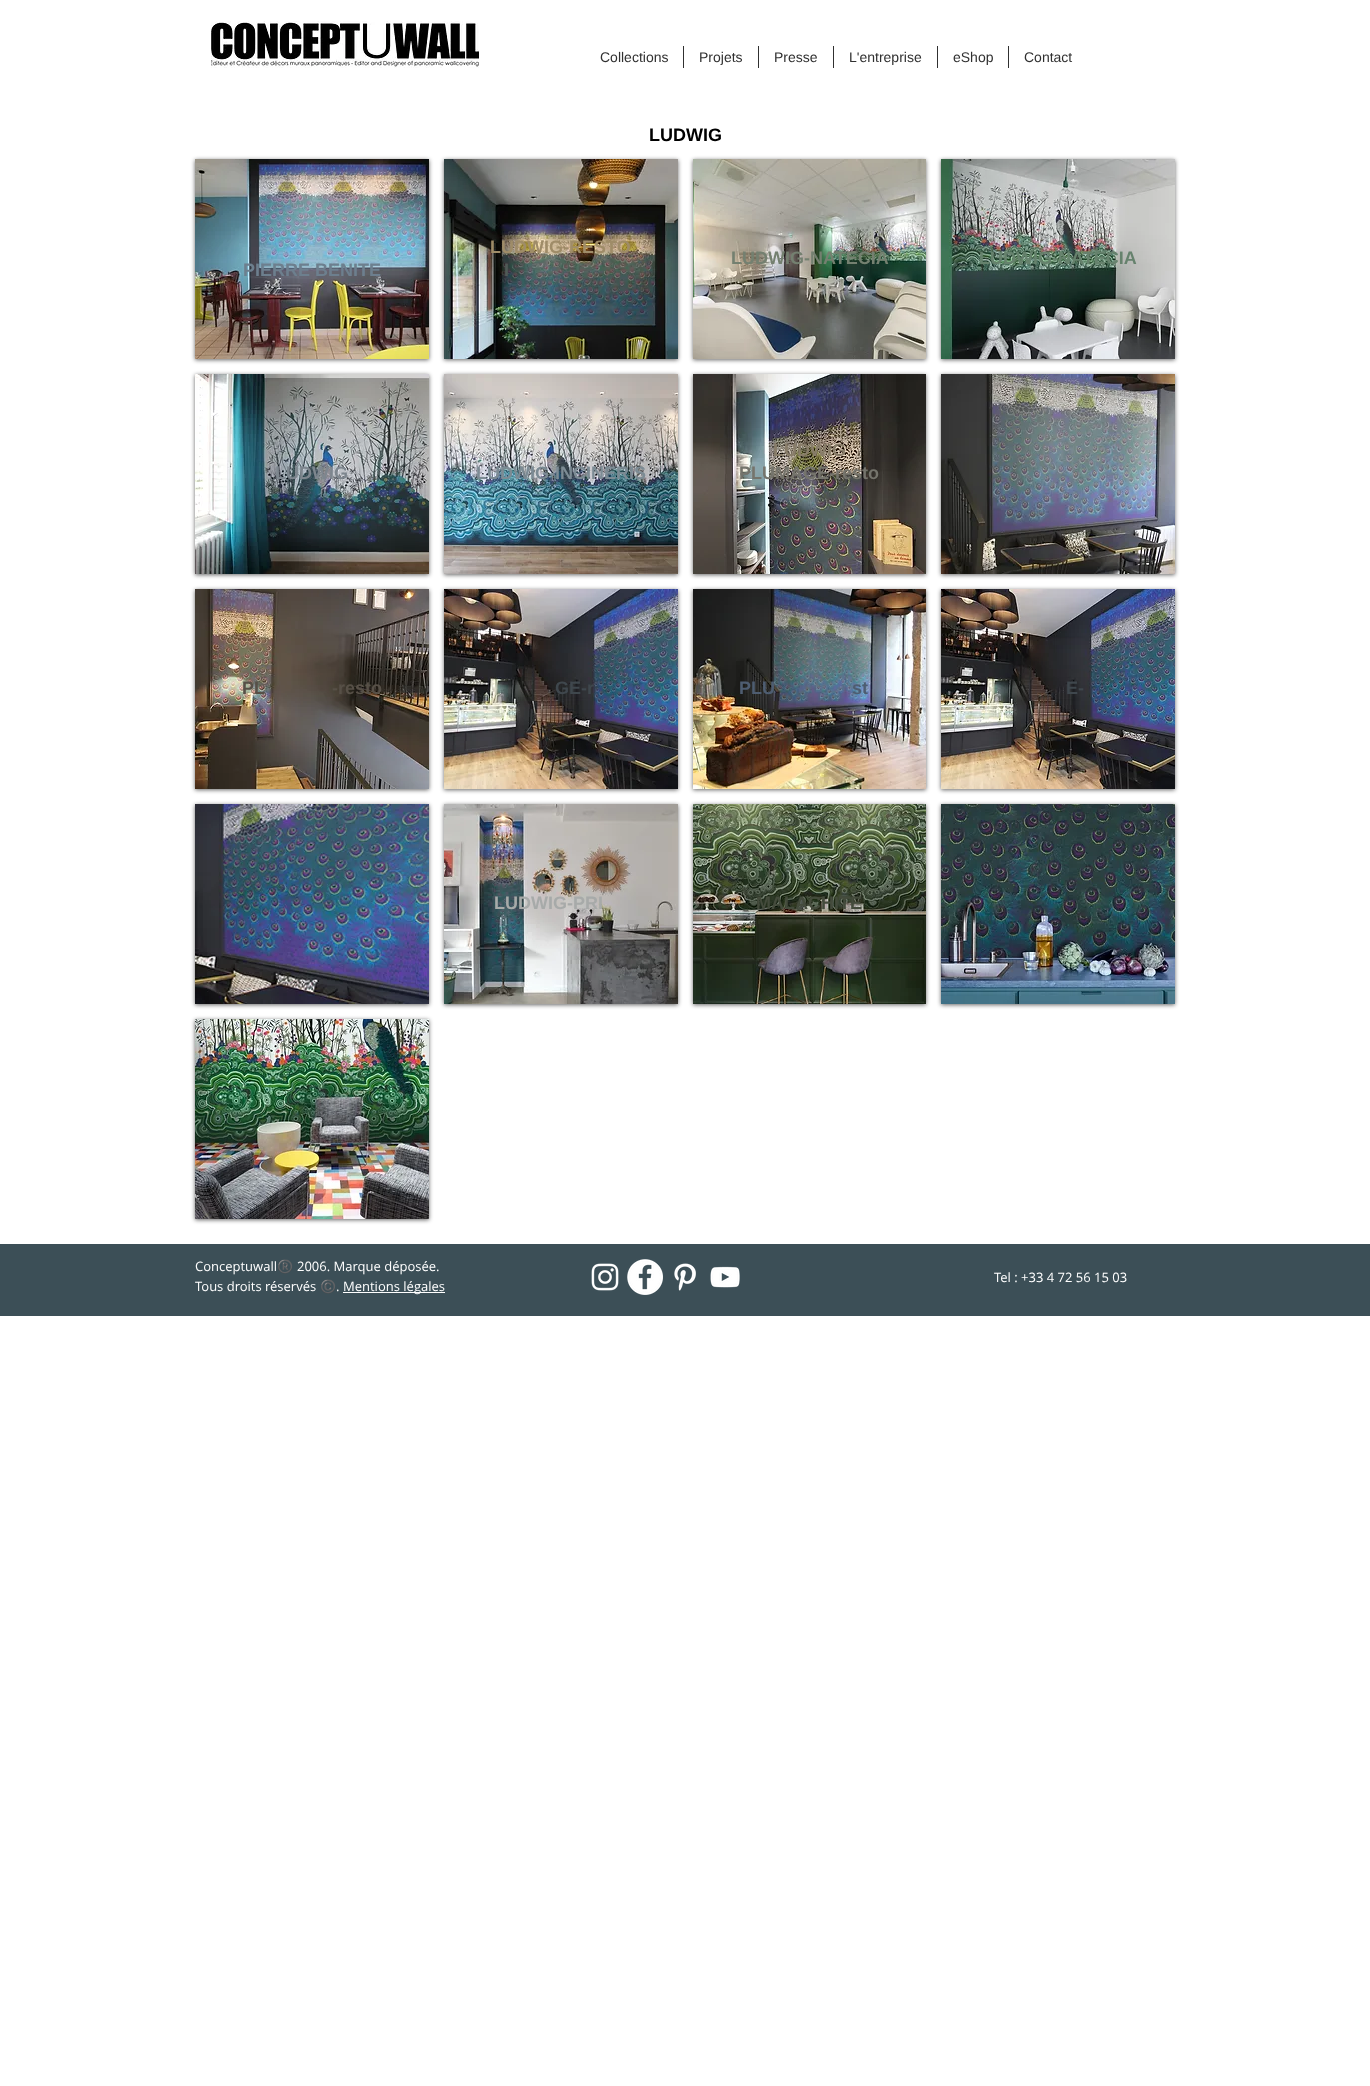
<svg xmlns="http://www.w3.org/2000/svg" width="1370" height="2086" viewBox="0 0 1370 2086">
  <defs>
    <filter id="blur1" x="-50%" y="-200%" width="200%" height="500%"><feGaussianBlur stdDeviation="2"/></filter>
  </defs>
  <rect width="100%" height="100%" fill="#ffffff"/>
  <image x="211" y="21" width="268" height="47" href="img1.png"/>
  <text x="600" y="62" font-family="Liberation Sans" font-size="14" fill="#303030">Collections</text>
  <rect x="683" y="46" width="1" height="22" fill="#303030"/>
  <text x="699" y="62" font-family="Liberation Sans" font-size="14" fill="#303030">Projets</text>
  <rect x="758" y="46" width="1" height="22" fill="#303030"/>
  <text x="774" y="62" font-family="Liberation Sans" font-size="14" fill="#303030">Presse</text>
  <rect x="833" y="46" width="1" height="22" fill="#303030"/>
  <text x="849" y="62" font-family="Liberation Sans" font-size="14" fill="#303030">L'entreprise</text>
  <rect x="937" y="46" width="1" height="22" fill="#303030"/>
  <text x="953" y="62" font-family="Liberation Sans" font-size="14" fill="#303030">eShop</text>
  <rect x="1008" y="46" width="1" height="22" fill="#303030"/>
  <text x="1024" y="62" font-family="Liberation Sans" font-size="14" fill="#303030">Contact</text>
  <text x="649" y="141" font-family="Liberation Sans" font-size="18" font-weight="bold" fill="#000000">LUDWIG</text>
  <rect x="444" y="160" width="234" height="200" fill="#000000" fill-opacity="0.6" filter="url(#blur1)"/>
  <image x="444" y="159" width="234" height="200" href="img2.png"/>
  <text x="490" y="253" font-family="Liberation Sans" font-size="18" font-weight="bold" fill="#9f8c68">LUDWIG-RESTO</text>
  <text x="504" y="276" font-family="Liberation Sans" font-size="18" font-weight="bold" fill="#505a56">I</text>
  <rect x="693" y="160" width="233" height="200" fill="#000000" fill-opacity="0.6" filter="url(#blur1)"/>
  <image x="693" y="159" width="233" height="200" href="img3.png"/>
  <text x="731" y="264" font-family="Liberation Sans" font-size="18" font-weight="bold" fill="#748070">LUDWIG-NATECIA</text>
  <rect x="941" y="160" width="234" height="200" fill="#000000" fill-opacity="0.6" filter="url(#blur1)"/>
  <image x="941" y="159" width="234" height="200" href="img4.png"/>
  <text x="979" y="264" font-family="Liberation Sans" font-size="18" font-weight="bold" fill="#66826d">LUDWIG-NATECIA</text>
  <rect x="195" y="160" width="234" height="200" fill="#000000" fill-opacity="0.6" filter="url(#blur1)"/>
  <image x="195" y="159" width="234" height="200" href="img5.png"/>
  <text x="243" y="276" font-family="Liberation Sans" font-size="18" font-weight="bold" fill="#6d7f8e">PIERRE BENITE</text>
  <rect x="195" y="375" width="234" height="200" fill="#000000" fill-opacity="0.6" filter="url(#blur1)"/>
  <image x="195" y="374" width="234" height="200" href="img6.png"/>
  <text x="275" y="479" font-family="Liberation Sans" font-size="18" font-weight="bold" fill="#7d868e">LUDWIG</text>
  <rect x="444" y="375" width="234" height="200" fill="#000000" fill-opacity="0.6" filter="url(#blur1)"/>
  <image x="444" y="374" width="234" height="200" href="img7.png"/>
  <text x="476" y="479" font-family="Liberation Sans" font-size="18" font-weight="bold" fill="#7c8b94">LUDWIG-INCINERIS</text>
  <rect x="693" y="375" width="233" height="200" fill="#000000" fill-opacity="0.6" filter="url(#blur1)"/>
  <image x="693" y="374" width="233" height="200" href="img8.png"/>
  <text x="773" y="456" font-family="Liberation Sans" font-size="18" font-weight="bold" fill="#887d69">LUDWIG</text>
  <text x="739" y="479" font-family="Liberation Sans" font-size="18" font-weight="bold" fill="#75746c">PLUMAGE-resto</text>
  <rect x="941" y="375" width="234" height="200" fill="#000000" fill-opacity="0.6" filter="url(#blur1)"/>
  <image x="941" y="374" width="234" height="200" href="img9.png"/>
  <rect x="195" y="590" width="234" height="200" fill="#000000" fill-opacity="0.6" filter="url(#blur1)"/>
  <image x="195" y="589" width="234" height="200" href="img10.png"/>
  <text x="242" y="694" font-family="Liberation Sans" font-size="18" font-weight="bold" fill="#575047">PL</text>
  <text x="332" y="694" font-family="Liberation Sans" font-size="18" font-weight="bold" fill="#575047">-resto</text>
  <rect x="444" y="590" width="234" height="200" fill="#000000" fill-opacity="0.6" filter="url(#blur1)"/>
  <image x="444" y="589" width="234" height="200" href="img11.png"/>
  <text x="555" y="694" font-family="Liberation Sans" font-size="18" font-weight="bold" fill="#3f474d">GE-r</text>
  <rect x="693" y="590" width="233" height="200" fill="#000000" fill-opacity="0.6" filter="url(#blur1)"/>
  <image x="693" y="589" width="233" height="200" href="img12.png"/>
  <text x="739" y="694" font-family="Liberation Sans" font-size="18" font-weight="bold" fill="#4e5d71">PLU</text>
  <text x="852" y="694" font-family="Liberation Sans" font-size="18" font-weight="bold" fill="#4e5d71">st</text>
  <rect x="941" y="590" width="234" height="200" fill="#000000" fill-opacity="0.6" filter="url(#blur1)"/>
  <image x="941" y="589" width="234" height="200" href="img13.png"/>
  <text x="1066" y="694" font-family="Liberation Sans" font-size="18" font-weight="bold" fill="#3f474d">E-</text>
  <rect x="195" y="805" width="234" height="200" fill="#000000" fill-opacity="0.6" filter="url(#blur1)"/>
  <image x="195" y="804" width="234" height="200" href="img14.png"/>
  <rect x="444" y="805" width="234" height="200" fill="#000000" fill-opacity="0.6" filter="url(#blur1)"/>
  <image x="444" y="804" width="234" height="200" href="img15.png"/>
  <text x="494" y="909" font-family="Liberation Sans" font-size="18" font-weight="bold" fill="#a7aaa9">LUDWIG-PRI</text>
  <rect x="693" y="805" width="233" height="200" fill="#000000" fill-opacity="0.6" filter="url(#blur1)"/>
  <image x="693" y="804" width="233" height="200" href="img16.png"/>
  <text x="756" y="909" font-family="Liberation Sans" font-size="18" font-weight="bold" fill="#444b3c">MALACHITE</text>
  <rect x="941" y="805" width="234" height="200" fill="#000000" fill-opacity="0.6" filter="url(#blur1)"/>
  <image x="941" y="804" width="234" height="200" href="img17.png"/>
  <rect x="195" y="1020" width="234" height="200" fill="#000000" fill-opacity="0.6" filter="url(#blur1)"/>
  <image x="195" y="1019" width="234" height="200" href="img18.png"/>
  <rect x="0" y="1244" width="1370" height="72" fill="#3c4f57"/>
  <text x="195" y="1271" font-family="Open Sans" font-size="13" fill="#ffffff">Conceptuwall</text>
  <text x="277" y="1271" font-family="Noto Color Emoji" font-size="13" fill="#ffffff">®️</text>
  <text x="297" y="1271" font-family="Open Sans" font-size="13" fill="#ffffff">2006. Marque déposée.</text>
  <text x="195" y="1291" font-family="Open Sans" font-size="13" fill="#ffffff">Tous droits réservés</text>
  <text x="320" y="1291" font-family="Noto Color Emoji" font-size="13" fill="#ffffff">©️</text>
  <text x="336" y="1291" font-family="Open Sans" font-size="13" fill="#ffffff">.</text>
  <rect x="343" y="1292" width="102" height="1" fill="#ffffff"/>
  <text x="343" y="1291" font-family="Open Sans" font-size="13" fill="#ffffff">Mentions légales</text>
  <image x="591" y="1263" width="28" height="28" href="img19.png"/>
  <image x="627" y="1259" width="36" height="36" href="img20.png"/>
  <image x="674" y="1263" width="22" height="28" href="img21.png"/>
  <image x="710" y="1266" width="30" height="22" href="img22.png"/>
  <text x="994" y="1282" font-family="Open Sans" font-size="13" fill="#ffffff">Tel : +33 4 72 56 15 03</text>
</svg>
